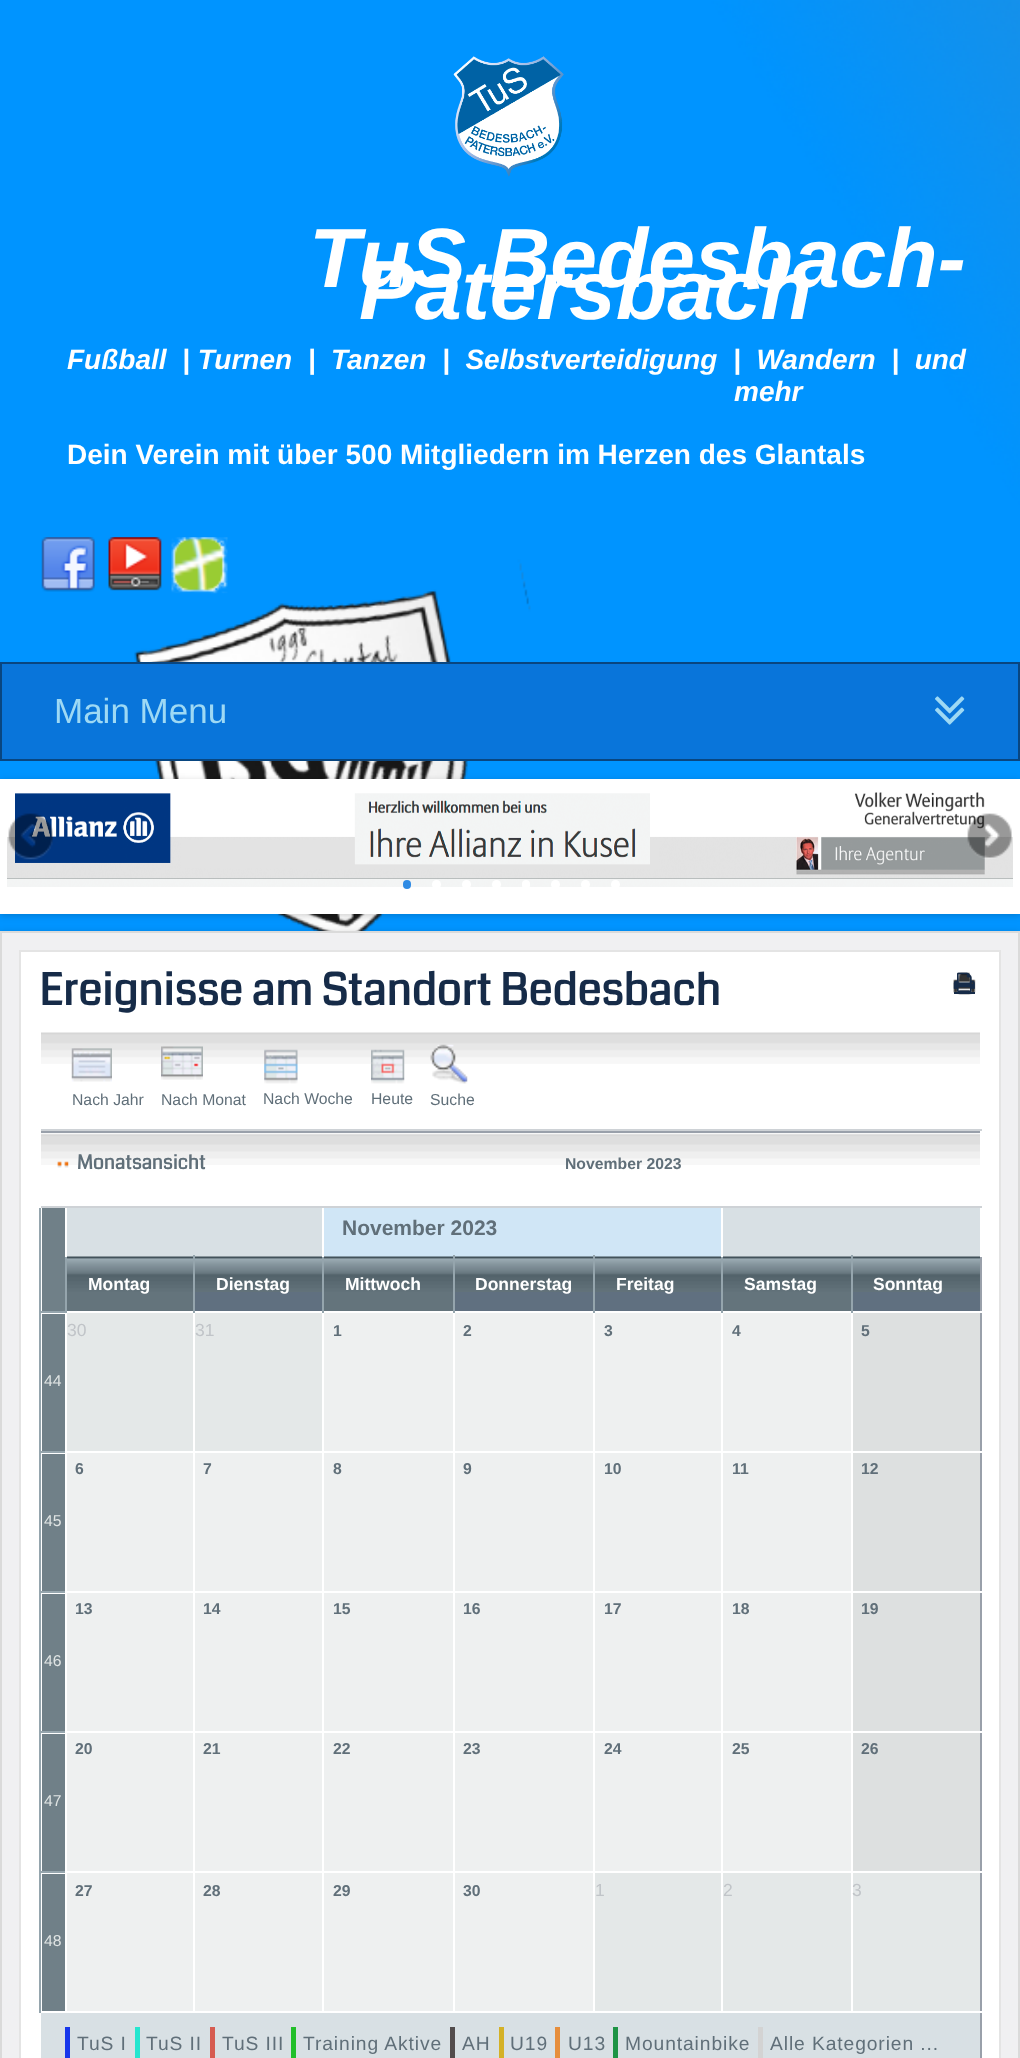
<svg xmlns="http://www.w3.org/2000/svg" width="1020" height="2058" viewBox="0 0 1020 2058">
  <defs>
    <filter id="blur1" x="-50%" y="-200%" width="200%" height="500%"><feGaussianBlur stdDeviation="3.5"/></filter>
  </defs>
  <rect width="100%" height="100%" fill="#ffffff"/>
  <image x="0" y="0" width="1020" height="931" href="img1.png"/>
  <image x="453" y="56" width="111" height="121" href="img2.png"/>
  <text x="309" y="287" font-family="Liberation Sans" font-size="84" font-weight="bold" font-style="italic" fill="#ffffff">TuS Bedesbach-</text>
  <text x="359" y="319" font-family="Liberation Sans" font-size="84" font-weight="bold" font-style="italic" fill="#ffffff">Patersbach</text>
  <text x="67" y="369" font-family="Liberation Sans" font-size="28" font-weight="bold" font-style="italic" fill="#ffffff" xml:space="preserve">Fußball  | Turnen  |  Tanzen  |  Selbstverteidigung  |  Wandern  |  und</text>
  <text x="734" y="401" font-family="Liberation Sans" font-size="28" font-weight="bold" font-style="italic" fill="#ffffff">mehr</text>
  <text x="67" y="464" font-family="Liberation Sans" font-size="28" font-weight="bold" fill="#ffffff">Dein Verein mit über 500 Mitgliedern im Herzen des Glantals</text>
  <image x="41" y="537" width="54" height="55" href="img3.png"/>
  <image x="108" y="537" width="54" height="54" href="img4.png"/>
  <image x="171" y="537" width="57" height="57" href="img5.png"/>
  <rect x="1" y="663" width="1018" height="97" fill="#0975da" stroke="#094680" stroke-width="2"/>
  <text x="54" y="723" font-family="Liberation Sans" font-size="35" fill="#9ed9f4">Main Menu</text>
  <image x="935" y="696" width="30" height="29" href="img6.png"/>
  <rect x="0" y="781" width="1020" height="134" fill="#000000" fill-opacity="0.2" filter="url(#blur1)"/>
  <rect x="0" y="779" width="1020" height="135" fill="#ffffff"/>
  <image x="7" y="792" width="1006" height="95" href="img7.png"/>
  <image x="8" y="813" width="45" height="47" href="img8.png"/>
  <image x="967" y="813" width="45" height="46" href="img9.png"/>
  <rect x="403" y="880" width="8" height="9" rx="4" fill="#2f8be4"/>
  <circle cx="436.5" cy="884.5" r="4.5" fill="#ffffff"/>
  <circle cx="466.5" cy="884.5" r="4.5" fill="#ffffff"/>
  <circle cx="496.5" cy="884.5" r="4.5" fill="#ffffff"/>
  <rect x="522" y="880" width="8" height="9" rx="4" fill="#ffffff"/>
  <circle cx="555.5" cy="884.5" r="4.5" fill="#ffffff"/>
  <circle cx="585.5" cy="884.5" r="4.5" fill="#ffffff"/>
  <circle cx="615.5" cy="884.5" r="4.5" fill="#ffffff"/>
  <rect x="0" y="933" width="1020" height="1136" fill="#000000" fill-opacity="0.2" filter="url(#blur1)"/>
  <rect x="1" y="932" width="1018" height="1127" fill="#f0f0f2" stroke="#dadada" stroke-width="2"/>
  <rect x="20" y="951" width="980" height="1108" fill="#ffffff" stroke="#e4e4e4" stroke-width="2"/>
  <text x="39" y="1005" font-family="Coda" font-size="43.75" font-weight="bold" fill="#162b48">Ereignisse am Standort Bedesbach</text>
  <image x="953" y="972" width="23" height="23" href="img10.png"/>
  <rect x="954" y="992" width="21" height="2" fill="#162b48"/>
  <image x="953" y="972" width="22" height="20" href="img11.png"/>
  <image x="41" y="1032" width="939" height="32" href="img12.png"/>
  <rect x="39" y="1129" width="943" height="2" fill="#ced2d6"/>
  <rect x="39" y="1129" width="2" height="2" fill="#ffffff"/>
  <image x="71" y="1048" width="41" height="34" href="img13.png"/>
  <text x="72" y="1105" font-family="Liberation Sans" font-size="15.75" fill="#606f79">Nach Jahr</text>
  <image x="161" y="1046" width="42" height="34" href="img14.png"/>
  <text x="161" y="1105" font-family="Liberation Sans" font-size="15.75" fill="#606f79">Nach Monat</text>
  <image x="264" y="1049" width="34" height="35" href="img15.png"/>
  <text x="263" y="1104" font-family="Liberation Sans" font-size="15.75" fill="#606f79">Nach Woche</text>
  <image x="371" y="1049" width="34" height="35" href="img16.png"/>
  <text x="371" y="1104" font-family="Liberation Sans" font-size="15.75" fill="#606f79">Heute</text>
  <image x="430" y="1044" width="38" height="40" href="img17.png"/>
  <text x="430" y="1105" font-family="Liberation Sans" font-size="15.75" fill="#606f79">Suche</text>
  <rect x="39" y="1131" width="943" height="2" fill="#99a0aa"/>
  <rect x="980" y="1257" width="2" height="801" fill="#99a0aa"/>
  <image x="41" y="1133" width="939" height="32" href="img18.png"/>
  <rect x="980" y="1131" width="2" height="2" fill="#ffffff"/>
  <rect x="39" y="1311" width="28" height="2" fill="#95a5ad"/>
  <rect x="39" y="1451" width="28" height="2" fill="#95a5ad"/>
  <rect x="39" y="1591" width="28" height="2" fill="#95a5ad"/>
  <rect x="39" y="1731" width="28" height="2" fill="#95a5ad"/>
  <rect x="39" y="1871" width="28" height="2" fill="#95a5ad"/>
  <rect x="39" y="1871" width="2" height="142" fill="#95a5ad"/>
  <rect x="39" y="1731" width="2" height="142" fill="#95a5ad"/>
  <rect x="39" y="1591" width="2" height="142" fill="#95a5ad"/>
  <rect x="39" y="1451" width="2" height="142" fill="#95a5ad"/>
  <rect x="39" y="1206" width="2" height="247" fill="#95a5ad"/>
  <rect x="39" y="1206" width="943" height="2" fill="#ced2d6"/>
  <rect x="39" y="1131" width="2" height="77" fill="#ffffff"/>
  <image x="57" y="1161" width="12" height="7" href="img19.png"/>
  <text x="77" y="1169" font-family="Coda" font-size="19.25" font-weight="bold" fill="#606f79">Monatsansicht</text>
  <text x="565" y="1169" font-family="Liberation Sans" font-size="15.75" font-weight="bold" fill="#606f79">November 2023</text>
  <rect x="42" y="1208" width="23" height="103" fill="#708088"/>
  <rect x="67" y="1208" width="255" height="49" fill="#d8e0e4"/>
  <rect x="65" y="1255" width="2" height="58" fill="#95a5ad"/>
  <rect x="65" y="1255" width="2" height="2" fill="#ffffff"/>
  <rect x="324" y="1208" width="397" height="49" fill="#d0e6f6"/>
  <rect x="322" y="1255" width="2" height="58" fill="#95a5ad"/>
  <rect x="322" y="1255" width="2" height="2" fill="#ffffff"/>
  <text x="342" y="1235" font-family="Liberation Sans" font-size="21" font-weight="bold" fill="#606f79">November 2023</text>
  <rect x="723" y="1208" width="257" height="49" fill="#d8e0e4"/>
  <rect x="721" y="1255" width="2" height="58" fill="#95a5ad"/>
  <rect x="721" y="1255" width="2" height="2" fill="#ffffff"/>
  <image x="67" y="1256" width="126" height="55" href="img20.png"/>
  <text x="88" y="1290" font-family="Liberation Sans" font-size="17.5" font-weight="bold" fill="#ffffff">Montag</text>
  <rect x="195" y="1292" width="127" height="19" fill="#607080"/>
  <image x="195" y="1256" width="127" height="36" href="img21.png"/>
  <rect x="193" y="1255" width="2" height="58" fill="#95a5ad"/>
  <text x="216" y="1290" font-family="Liberation Sans" font-size="17.5" font-weight="bold" fill="#ffffff">Dienstag</text>
  <image x="324" y="1256" width="129" height="55" href="img22.png"/>
  <text x="345" y="1290" font-family="Liberation Sans" font-size="17.5" font-weight="bold" fill="#ffffff">Mittwoch</text>
  <rect x="455" y="1292" width="138" height="19" fill="#607080"/>
  <image x="455" y="1256" width="138" height="36" href="img23.png"/>
  <rect x="453" y="1255" width="2" height="58" fill="#95a5ad"/>
  <text x="475" y="1290" font-family="Liberation Sans" font-size="17.5" font-weight="bold" fill="#ffffff">Donnerstag</text>
  <rect x="595" y="1292" width="126" height="19" fill="#607080"/>
  <image x="595" y="1256" width="126" height="36" href="img24.png"/>
  <rect x="593" y="1255" width="2" height="58" fill="#95a5ad"/>
  <text x="616" y="1290" font-family="Liberation Sans" font-size="17.5" font-weight="bold" fill="#ffffff">Freitag</text>
  <image x="723" y="1256" width="128" height="55" href="img25.png"/>
  <text x="744" y="1290" font-family="Liberation Sans" font-size="17.5" font-weight="bold" fill="#ffffff">Samstag</text>
  <rect x="853" y="1292" width="127" height="19" fill="#607080"/>
  <image x="853" y="1256" width="127" height="36" href="img21.png"/>
  <rect x="851" y="1255" width="2" height="58" fill="#95a5ad"/>
  <text x="873" y="1290" font-family="Liberation Sans" font-size="17.5" font-weight="bold" fill="#ffffff">Sonntag</text>
  <rect x="67" y="1313" width="126" height="138" fill="#e4e8e8"/>
  <rect x="65" y="1451" width="2" height="2" fill="#ffffff"/>
  <text x="67" y="1336" font-family="Liberation Sans" font-size="17.5" fill="#c0c4c8">30</text>
  <rect x="195" y="1313" width="127" height="138" fill="#e4e8e8"/>
  <text x="195" y="1336" font-family="Liberation Sans" font-size="17.5" fill="#c0c4c8">31</text>
  <rect x="324" y="1313" width="129" height="138" fill="#eef0f0"/>
  <text x="333" y="1336" font-family="Liberation Sans" font-size="15.75" font-weight="bold" fill="#606f79">1</text>
  <rect x="455" y="1313" width="138" height="138" fill="#eef0f0"/>
  <text x="463" y="1336" font-family="Liberation Sans" font-size="15.75" font-weight="bold" fill="#606f79">2</text>
  <rect x="595" y="1313" width="126" height="138" fill="#eef0f0"/>
  <text x="604" y="1336" font-family="Liberation Sans" font-size="15.75" font-weight="bold" fill="#606f79">3</text>
  <rect x="723" y="1313" width="128" height="138" fill="#eef0f0"/>
  <text x="732" y="1336" font-family="Liberation Sans" font-size="15.75" font-weight="bold" fill="#606f79">4</text>
  <rect x="853" y="1313" width="127" height="138" fill="#dde0e0"/>
  <rect x="980" y="1311" width="2" height="2" fill="#ffffff"/>
  <text x="861" y="1336" font-family="Liberation Sans" font-size="15.75" font-weight="bold" fill="#606f79">5</text>
  <rect x="42" y="1314" width="23" height="137" fill="#708088"/>
  <text x="44" y="1386" font-family="Liberation Sans" font-size="15.75" fill="#e0e4e4">44</text>
  <rect x="67" y="1453" width="126" height="138" fill="#eef0f0"/>
  <rect x="65" y="1591" width="2" height="2" fill="#ffffff"/>
  <text x="75" y="1474" font-family="Liberation Sans" font-size="15.75" font-weight="bold" fill="#606f79">6</text>
  <rect x="195" y="1453" width="127" height="138" fill="#eef0f0"/>
  <text x="203" y="1474" font-family="Liberation Sans" font-size="15.75" font-weight="bold" fill="#606f79">7</text>
  <rect x="324" y="1453" width="129" height="138" fill="#eef0f0"/>
  <text x="333" y="1474" font-family="Liberation Sans" font-size="15.75" font-weight="bold" fill="#606f79">8</text>
  <rect x="455" y="1453" width="138" height="138" fill="#eef0f0"/>
  <text x="463" y="1474" font-family="Liberation Sans" font-size="15.75" font-weight="bold" fill="#606f79">9</text>
  <rect x="595" y="1453" width="126" height="138" fill="#eef0f0"/>
  <text x="604" y="1474" font-family="Liberation Sans" font-size="15.75" font-weight="bold" fill="#606f79">10</text>
  <rect x="723" y="1453" width="128" height="138" fill="#eef0f0"/>
  <text x="732" y="1474" font-family="Liberation Sans" font-size="15.75" font-weight="bold" fill="#606f79">11</text>
  <rect x="853" y="1453" width="127" height="138" fill="#dde0e0"/>
  <rect x="980" y="1451" width="2" height="2" fill="#ffffff"/>
  <text x="861" y="1474" font-family="Liberation Sans" font-size="15.75" font-weight="bold" fill="#606f79">12</text>
  <rect x="42" y="1454" width="23" height="137" fill="#708088"/>
  <text x="44" y="1526" font-family="Liberation Sans" font-size="15.75" fill="#e0e4e4">45</text>
  <rect x="67" y="1593" width="126" height="138" fill="#eef0f0"/>
  <rect x="65" y="1731" width="2" height="2" fill="#ffffff"/>
  <text x="75" y="1614" font-family="Liberation Sans" font-size="15.75" font-weight="bold" fill="#606f79">13</text>
  <rect x="195" y="1593" width="127" height="138" fill="#eef0f0"/>
  <text x="203" y="1614" font-family="Liberation Sans" font-size="15.75" font-weight="bold" fill="#606f79">14</text>
  <rect x="324" y="1593" width="129" height="138" fill="#eef0f0"/>
  <text x="333" y="1614" font-family="Liberation Sans" font-size="15.75" font-weight="bold" fill="#606f79">15</text>
  <rect x="455" y="1593" width="138" height="138" fill="#eef0f0"/>
  <text x="463" y="1614" font-family="Liberation Sans" font-size="15.75" font-weight="bold" fill="#606f79">16</text>
  <rect x="595" y="1593" width="126" height="138" fill="#eef0f0"/>
  <text x="604" y="1614" font-family="Liberation Sans" font-size="15.75" font-weight="bold" fill="#606f79">17</text>
  <rect x="723" y="1593" width="128" height="138" fill="#eef0f0"/>
  <text x="732" y="1614" font-family="Liberation Sans" font-size="15.75" font-weight="bold" fill="#606f79">18</text>
  <rect x="853" y="1593" width="127" height="138" fill="#dde0e0"/>
  <rect x="980" y="1591" width="2" height="2" fill="#ffffff"/>
  <text x="861" y="1614" font-family="Liberation Sans" font-size="15.75" font-weight="bold" fill="#606f79">19</text>
  <rect x="42" y="1594" width="23" height="137" fill="#708088"/>
  <text x="44" y="1666" font-family="Liberation Sans" font-size="15.75" fill="#e0e4e4">46</text>
  <rect x="67" y="1733" width="126" height="138" fill="#eef0f0"/>
  <rect x="65" y="1871" width="2" height="2" fill="#ffffff"/>
  <text x="75" y="1754" font-family="Liberation Sans" font-size="15.75" font-weight="bold" fill="#606f79">20</text>
  <rect x="195" y="1733" width="127" height="138" fill="#eef0f0"/>
  <text x="203" y="1754" font-family="Liberation Sans" font-size="15.75" font-weight="bold" fill="#606f79">21</text>
  <rect x="324" y="1733" width="129" height="138" fill="#eef0f0"/>
  <text x="333" y="1754" font-family="Liberation Sans" font-size="15.75" font-weight="bold" fill="#606f79">22</text>
  <rect x="455" y="1733" width="138" height="138" fill="#eef0f0"/>
  <text x="463" y="1754" font-family="Liberation Sans" font-size="15.75" font-weight="bold" fill="#606f79">23</text>
  <rect x="595" y="1733" width="126" height="138" fill="#eef0f0"/>
  <text x="604" y="1754" font-family="Liberation Sans" font-size="15.75" font-weight="bold" fill="#606f79">24</text>
  <rect x="723" y="1733" width="128" height="138" fill="#eef0f0"/>
  <text x="732" y="1754" font-family="Liberation Sans" font-size="15.75" font-weight="bold" fill="#606f79">25</text>
  <rect x="853" y="1733" width="127" height="138" fill="#dde0e0"/>
  <rect x="980" y="1731" width="2" height="2" fill="#ffffff"/>
  <text x="861" y="1754" font-family="Liberation Sans" font-size="15.75" font-weight="bold" fill="#606f79">26</text>
  <rect x="42" y="1734" width="23" height="137" fill="#708088"/>
  <text x="44" y="1806" font-family="Liberation Sans" font-size="15.75" fill="#e0e4e4">47</text>
  <rect x="67" y="1873" width="126" height="138" fill="#eef0f0"/>
  <text x="75" y="1896" font-family="Liberation Sans" font-size="15.75" font-weight="bold" fill="#606f79">27</text>
  <rect x="195" y="1873" width="127" height="138" fill="#eef0f0"/>
  <text x="203" y="1896" font-family="Liberation Sans" font-size="15.75" font-weight="bold" fill="#606f79">28</text>
  <rect x="324" y="1873" width="129" height="138" fill="#eef0f0"/>
  <text x="333" y="1896" font-family="Liberation Sans" font-size="15.75" font-weight="bold" fill="#606f79">29</text>
  <rect x="455" y="1873" width="138" height="138" fill="#eef0f0"/>
  <text x="463" y="1896" font-family="Liberation Sans" font-size="15.75" font-weight="bold" fill="#606f79">30</text>
  <rect x="595" y="1873" width="126" height="138" fill="#e4e8e8"/>
  <text x="595" y="1896" font-family="Liberation Sans" font-size="17.5" fill="#c0c4c8">1</text>
  <rect x="723" y="1873" width="128" height="138" fill="#e4e8e8"/>
  <text x="723" y="1896" font-family="Liberation Sans" font-size="17.5" fill="#c0c4c8">2</text>
  <rect x="853" y="1873" width="127" height="138" fill="#e4e8e8"/>
  <rect x="980" y="1871" width="2" height="2" fill="#ffffff"/>
  <text x="852" y="1896" font-family="Liberation Sans" font-size="17.5" fill="#c0c4c8">3</text>
  <rect x="42" y="1874" width="23" height="137" fill="#708088"/>
  <text x="44" y="1946" font-family="Liberation Sans" font-size="15.75" fill="#e0e4e4">48</text>
  <rect x="41" y="2013" width="939" height="45" fill="#d8e0e4"/>
  <rect x="980" y="2011" width="2" height="2" fill="#ffffff"/>
  <rect x="65" y="2027" width="5" height="31" fill="#1737eb"/>
  <text x="77" y="2050" font-family="Liberation Sans" font-size="19.25" letter-spacing="0.9" fill="#606f79">TuS I</text>
  <rect x="135" y="2027" width="5" height="31" fill="#25e6cf"/>
  <text x="146" y="2050" font-family="Liberation Sans" font-size="19.25" letter-spacing="0.9" fill="#606f79">TuS II</text>
  <rect x="210" y="2027" width="5" height="31" fill="#d65c51"/>
  <text x="222" y="2050" font-family="Liberation Sans" font-size="19.25" letter-spacing="0.9" fill="#606f79">TuS III</text>
  <rect x="291" y="2027" width="5" height="31" fill="#22bf2a"/>
  <text x="303" y="2050" font-family="Liberation Sans" font-size="19.25" letter-spacing="0.9" fill="#606f79">Training Aktive</text>
  <rect x="450" y="2027" width="5" height="31" fill="#524c4c"/>
  <text x="462" y="2050" font-family="Liberation Sans" font-size="19.25" letter-spacing="0.9" fill="#606f79">AH</text>
  <rect x="499" y="2027" width="5" height="31" fill="#d4b126"/>
  <text x="510" y="2050" font-family="Liberation Sans" font-size="19.25" letter-spacing="0.9" fill="#606f79">U19</text>
  <rect x="555" y="2027" width="5" height="31" fill="#e68e3c"/>
  <text x="568" y="2050" font-family="Liberation Sans" font-size="19.25" letter-spacing="0.9" fill="#606f79">U13</text>
  <rect x="613" y="2027" width="5" height="31" fill="#1e9445"/>
  <text x="625" y="2050" font-family="Liberation Sans" font-size="19.25" letter-spacing="0.9" fill="#606f79">Mountainbike</text>
  <rect x="758" y="2027" width="5" height="31" fill="#d3d3d3"/>
  <text x="770" y="2050" font-family="Liberation Sans" font-size="19.25" letter-spacing="0.9" fill="#606f79">Alle Kategorien ...</text>
</svg>
